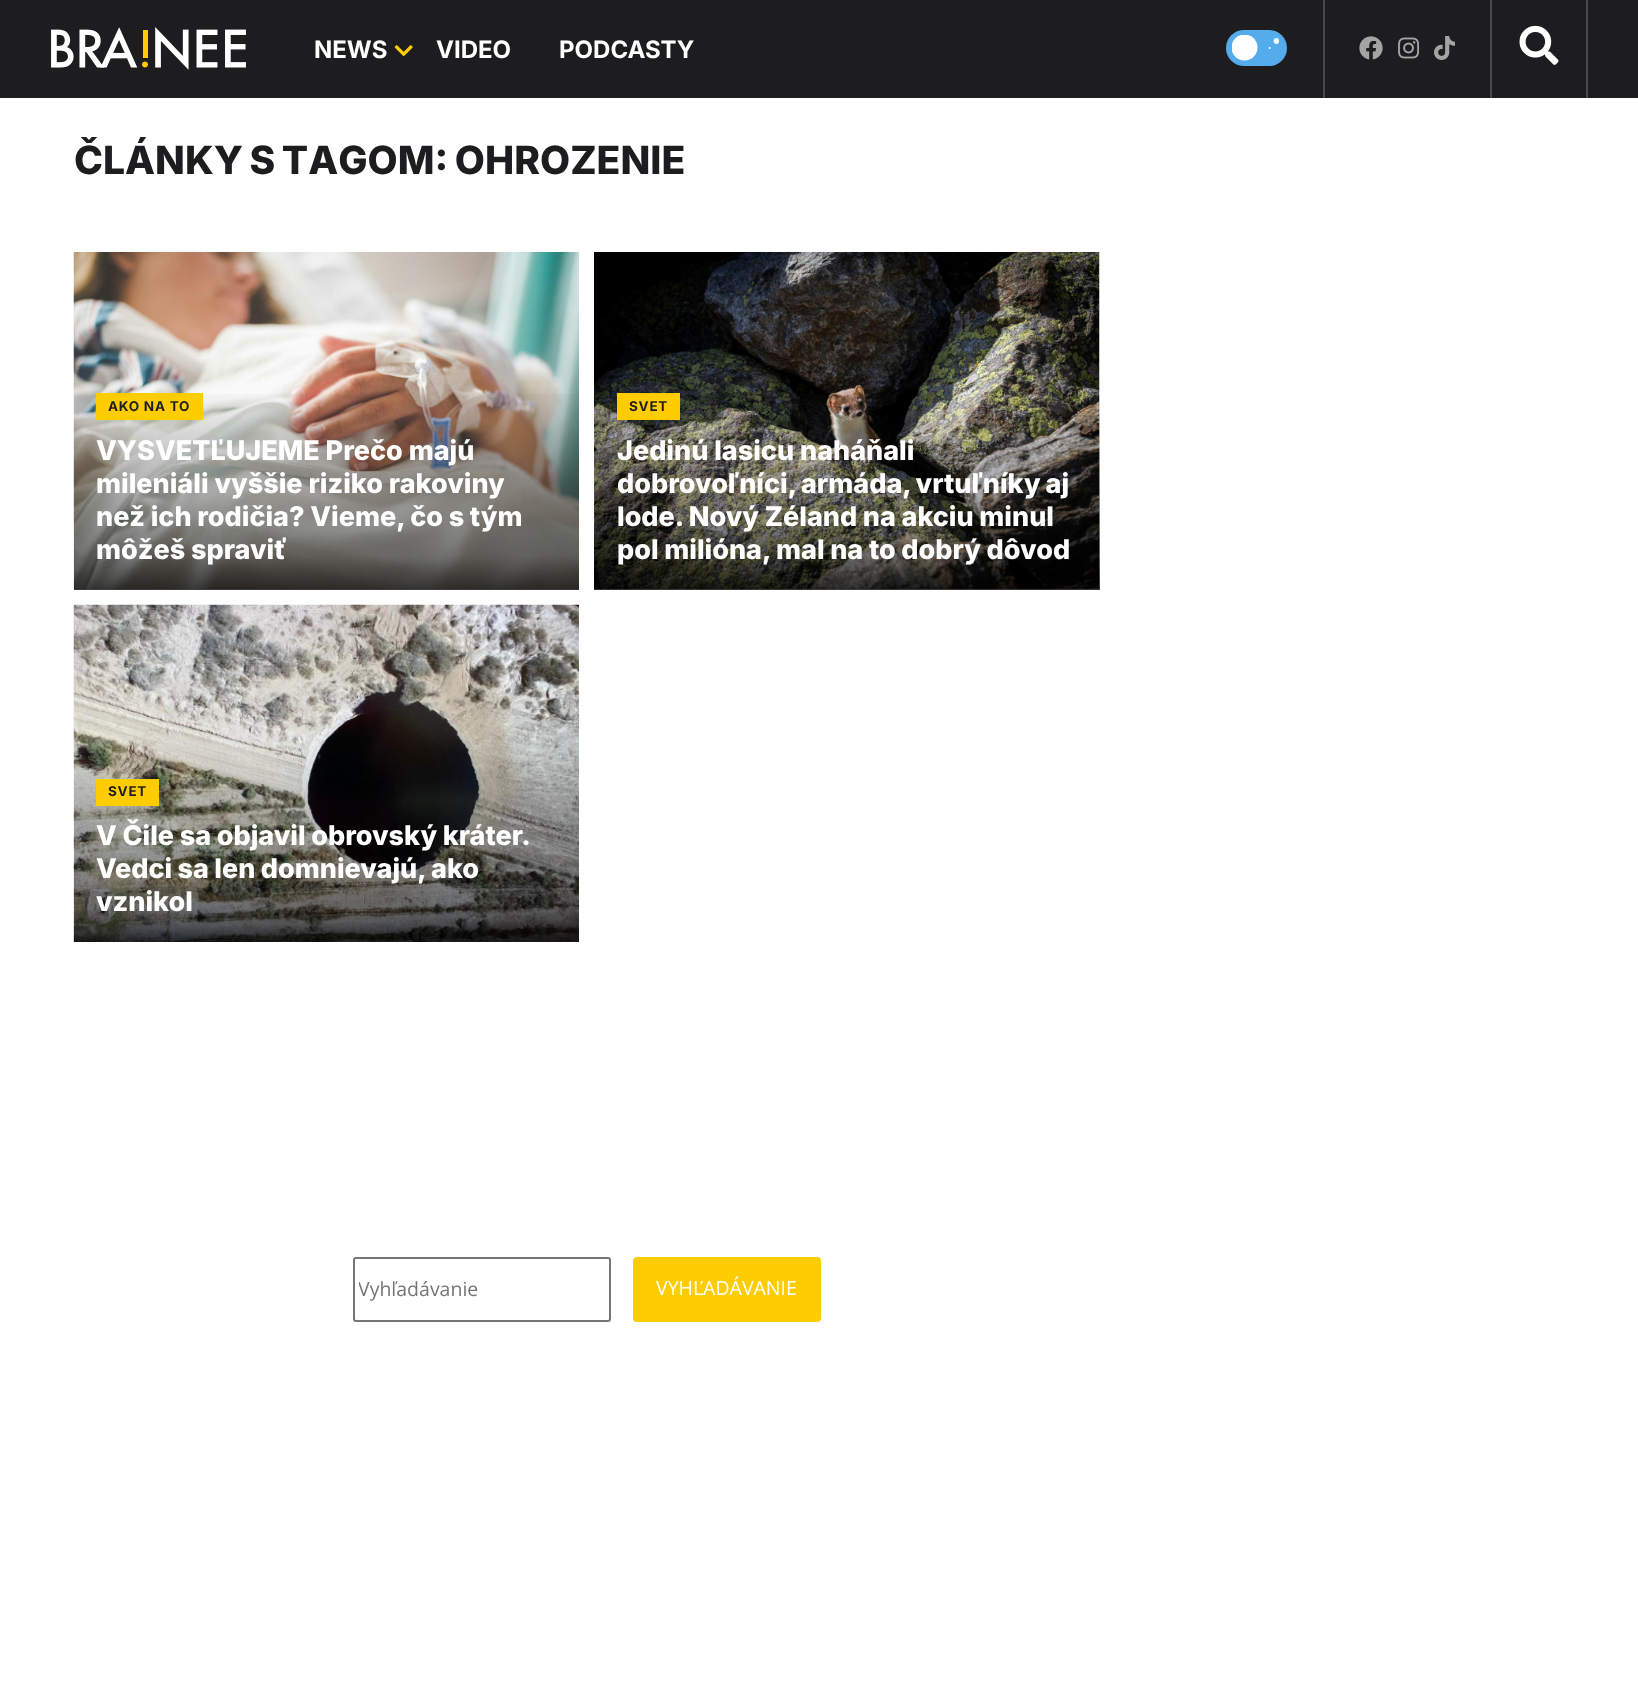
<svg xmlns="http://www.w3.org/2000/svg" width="1638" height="1694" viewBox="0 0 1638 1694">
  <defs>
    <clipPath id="clip1"><rect x="1232" y="35" width="49" height="27"/></clipPath>
    <linearGradient id="g1" gradientUnits="userSpaceOnUse" x1="326" y1="590" x2="326" y2="252"><stop offset="0" stop-color="#000000" stop-opacity="0.75"/><stop offset="0.1" stop-color="#000000" stop-opacity="0.5"/><stop offset="0.35" stop-color="#000000" stop-opacity="0.25"/><stop offset="0.6" stop-color="#000000" stop-opacity="0"/></linearGradient>
    <linearGradient id="g2" gradientUnits="userSpaceOnUse" x1="847" y1="590" x2="847" y2="252"><stop offset="0" stop-color="#000000" stop-opacity="0.75"/><stop offset="0.1" stop-color="#000000" stop-opacity="0.5"/><stop offset="0.35" stop-color="#000000" stop-opacity="0.25"/><stop offset="0.6" stop-color="#000000" stop-opacity="0"/></linearGradient>
    <clipPath id="clip2"><rect x="359" y="1275" width="246" height="27"/></clipPath>
  </defs>
  <rect width="100%" height="100%" fill="#ffffff"/>
  <rect x="0" y="0" width="1638" height="98" fill="#1d1d1f"/>
  <image x="51" y="27" width="195" height="43" href="img1.png"/>
  <text x="314" y="58" font-family="Inter" font-size="24" font-weight="bold" fill="#ffffff">NEWS</text>
  <image x="394" y="45" width="19" height="12" href="img2.png"/>
  <text x="436" y="58" font-family="Inter" font-size="24" font-weight="bold" fill="#ffffff">VIDEO</text>
  <text x="559" y="58" font-family="Inter" font-size="24" font-weight="bold" fill="#ffffff">PODCASTY</text>
  <rect x="1226" y="30" width="61" height="36" rx="18" fill="#55aced"/>
  <g clip-path="url(#clip1)">
    <circle cx="1244.5" cy="47.5" r="13" fill="#ffffff"/>
  </g>
  <path d="M1269.5 47C1268.5 47 1268.5 49 1269.5 49C1271 49 1271 47 1269.5 47ZM1276.5 38C1272.5 38 1272.5 44 1276.5 44C1280 44 1280 38 1276.5 38Z" fill="#ffffff"/>
  <rect x="1323" y="0" width="2" height="98" fill="#49494b"/>
  <image x="1359" y="36" width="24" height="24" href="img3.png"/>
  <image x="1398" y="37" width="22" height="22" href="img4.png"/>
  <image x="1434" y="36" width="21" height="24" href="img5.png"/>
  <rect x="1586" y="0" width="2" height="98" fill="#49494b"/>
  <rect x="1490" y="0" width="2" height="98" fill="#49494b"/>
  <image x="1519" y="25" width="40" height="40" href="img6.png"/>
  <text x="74" y="174" word-spacing="-2" font-family="Inter" font-size="39" font-weight="800" fill="#1d1d1f">ČLÁNKY S TAGOM: OHROZENIE</text>
  <image x="73" y="252" width="506" height="338" href="img7.png"/>
  <rect x="74" y="394" width="505" height="196" fill="url(#g1)"/>
  <rect x="96" y="393" width="107" height="27" fill="#ffcc00"/>
  <text x="108" y="411" font-family="Inter" font-size="13.5" font-weight="bold" letter-spacing="0.75" fill="#1d1d1f">AKO NA TO</text>
  <text x="96" y="460" font-family="Inter" font-size="27" font-weight="800" fill="#ffffff">VYSVETĽUJEME Prečo majú</text>
  <text x="96" y="493" font-family="Inter" font-size="27" font-weight="800" fill="#ffffff">mileniáli vyššie riziko rakoviny</text>
  <text x="96" y="526" word-spacing="-0.25" font-family="Inter" font-size="27" font-weight="800" fill="#ffffff">než ich rodičia? Vieme, čo s tým</text>
  <text x="96" y="559" font-family="Inter" font-size="27" font-weight="800" fill="#ffffff">môžeš spraviť</text>
  <image x="594" y="252" width="506" height="338" href="img8.png"/>
  <rect x="594" y="394" width="506" height="196" fill="url(#g2)"/>
  <rect x="617" y="393" width="63" height="27" fill="#ffcc00"/>
  <text x="629" y="411" font-family="Inter" font-size="13.5" font-weight="bold" letter-spacing="0.75" fill="#1d1d1f">SVET</text>
  <text x="617" y="460" font-family="Inter" font-size="27" font-weight="800" fill="#ffffff">Jedinú lasicu naháňali</text>
  <text x="617" y="493" word-spacing="-1" font-family="Inter" font-size="27" font-weight="800" fill="#ffffff">dobrovoľníci, armáda, vrtuľníky aj</text>
  <text x="617" y="526" word-spacing="-0.25" font-family="Inter" font-size="27" font-weight="800" fill="#ffffff">lode. Nový Zéland na akciu minul</text>
  <text x="617" y="559" word-spacing="-0.25" font-family="Inter" font-size="27" font-weight="800" fill="#ffffff">pol milióna, mal na to dobrý dôvod</text>
  <image x="73" y="604" width="506" height="338" href="img9.png"/>
  <rect x="96" y="779" width="63" height="27" fill="#ffcc00"/>
  <text x="108" y="796" font-family="Inter" font-size="13.5" font-weight="bold" letter-spacing="0.75" fill="#1d1d1f">SVET</text>
  <text x="96" y="845" word-spacing="-0.25" font-family="Inter" font-size="27" font-weight="800" fill="#ffffff">V Čile sa objavil obrovský kráter.</text>
  <text x="96" y="878" word-spacing="-0.5" font-family="Inter" font-size="27" font-weight="800" fill="#ffffff">Vedci sa len domnievajú, ako</text>
  <text x="96" y="911" font-family="Inter" font-size="27" font-weight="800" fill="#ffffff">vznikol</text>
  <rect x="354" y="1258" width="256" height="63" rx="2" fill="none" stroke="#767676" stroke-width="2"/>
  <g clip-path="url(#clip2)">
    <text x="358" y="1296" font-family="Open Sans" font-size="19.5" fill="#757575">Vyhľadávanie</text>
  </g>
  <rect x="633" y="1257" width="188" height="65" rx="4" fill="#ffcc00"/>
  <text x="656" y="1295" font-family="Open Sans" font-size="19.5" fill="#ffffff">VYHĽADÁVANIE</text>
</svg>
